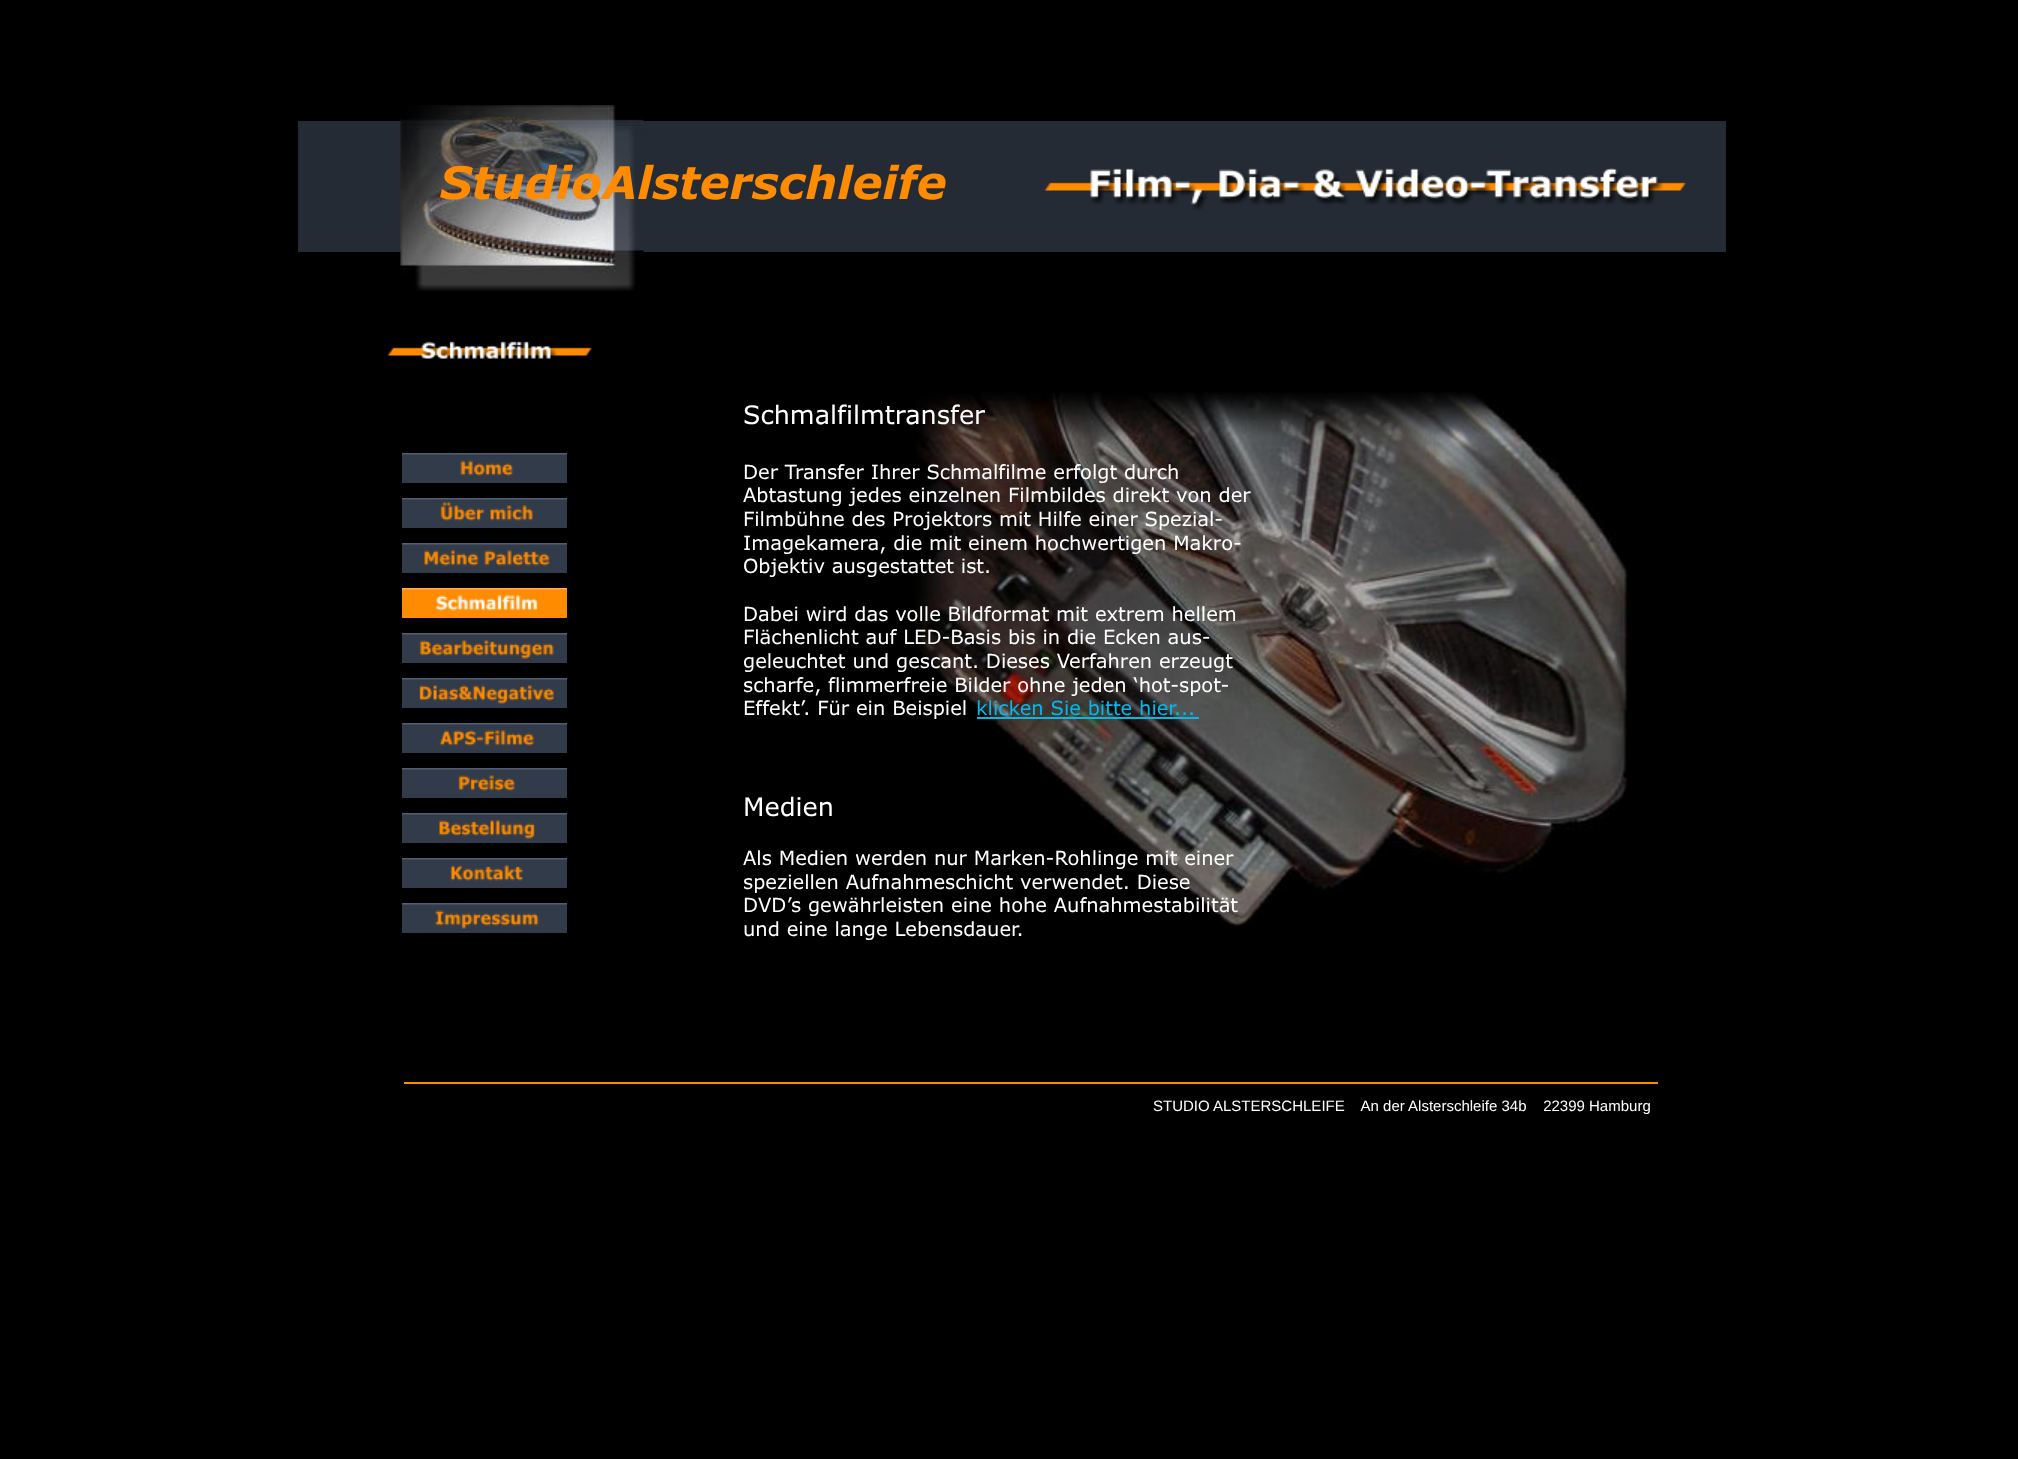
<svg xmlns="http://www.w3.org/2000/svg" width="2018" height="1459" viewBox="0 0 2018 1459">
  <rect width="100%" height="100%" fill="#000000"/>
  <rect x="298" y="121" width="1428" height="131" fill="#242b35"/>
  <image x="400" y="105" width="244" height="186" href="img1.png"/>
  <text x="440" y="199" font-family="Verdana" font-size="45" font-weight="bold" font-style="italic" fill="#ff8b00">StudioAlsterschleife</text>
  <image x="1044" y="168" width="642" height="42" href="img2.png"/>
  <image x="387" y="341" width="206" height="18" href="img3.png"/>
  <image x="915" y="392" width="713" height="535" href="img4.png"/>
  <image x="402" y="453" width="165" height="30" href="img5.png"/>
  <image x="402" y="498" width="165" height="30" href="img6.png"/>
  <image x="402" y="543" width="165" height="30" href="img7.png"/>
  <image x="565" y="616" width="2" height="2" href="img9.png"/>
  <image x="402" y="588" width="165" height="30" href="img8.png"/>
  <image x="402" y="633" width="165" height="30" href="img10.png"/>
  <image x="402" y="678" width="165" height="30" href="img11.png"/>
  <image x="402" y="723" width="165" height="30" href="img12.png"/>
  <image x="402" y="768" width="165" height="30" href="img13.png"/>
  <image x="402" y="813" width="165" height="30" href="img14.png"/>
  <image x="402" y="858" width="165" height="30" href="img15.png"/>
  <image x="402" y="903" width="165" height="30" href="img16.png"/>
  <text x="743" y="424" font-family="Verdana" font-size="25.5" fill="#ffffff">Schmalfilmtransfer</text>
  <text x="743" y="479" font-family="Verdana" font-size="19.5" fill="#ffffff">Der Transfer Ihrer Schmalfilme erfolgt durch</text>
  <text x="743" y="502" font-family="Verdana" font-size="19.5" fill="#ffffff">Abtastung jedes einzelnen Filmbildes direkt von der</text>
  <text x="743" y="526" font-family="Verdana" font-size="19.5" fill="#ffffff">Filmbühne des Projektors mit Hilfe einer Spezial-</text>
  <text x="743" y="550" font-family="Verdana" font-size="19.5" fill="#ffffff">Imagekamera, die mit einem hochwertigen Makro-</text>
  <text x="743" y="573" font-family="Verdana" font-size="19.5" fill="#ffffff">Objektiv ausgestattet ist.</text>
  <text x="743" y="621" font-family="Verdana" font-size="19.5" fill="#ffffff">Dabei wird das volle Bildformat mit extrem hellem</text>
  <text x="743" y="644" font-family="Verdana" font-size="19.5" fill="#ffffff">Flächenlicht auf LED-Basis bis in die Ecken aus-</text>
  <text x="743" y="668" font-family="Verdana" font-size="19.5" fill="#ffffff">geleuchtet und gescant. Dieses Verfahren erzeugt</text>
  <text x="743" y="692" font-family="Verdana" font-size="19.5" fill="#ffffff">scharfe, flimmerfreie Bilder ohne jeden ‘hot-spot-</text>
  <text x="743" y="715" font-family="Verdana" font-size="19.5" fill="#ffffff">Effekt’. Für ein Beispiel</text>
  <text x="976" y="715" font-family="Verdana" font-size="19.5" fill="#00baee">klicken Sie bitte hier...</text>
  <rect x="977" y="717" width="222" height="2" fill="#00baee"/>
  <text x="743" y="816" font-family="Verdana" font-size="25.5" fill="#ffffff">Medien</text>
  <text x="743" y="865" font-family="Verdana" font-size="19.5" fill="#ffffff">Als Medien werden nur Marken-Rohlinge mit einer</text>
  <text x="743" y="889" font-family="Verdana" font-size="19.5" fill="#ffffff">speziellen Aufnahmeschicht verwendet. Diese</text>
  <text x="743" y="912" font-family="Verdana" font-size="19.5" fill="#ffffff">DVD’s gewährleisten eine hohe Aufnahmestabilität</text>
  <text x="743" y="936" font-family="Verdana" font-size="19.5" fill="#ffffff">und eine lange Lebensdauer.</text>
  <rect x="404" y="1082" width="1254" height="2" fill="#ff8b00"/>
  <text x="1153" y="1111" font-family="Liberation Sans" font-size="15" fill="#ffffff" xml:space="preserve">STUDIO ALSTERSCHLEIFE    An der Alsterschleife 34b    22399 Hamburg</text>
</svg>
